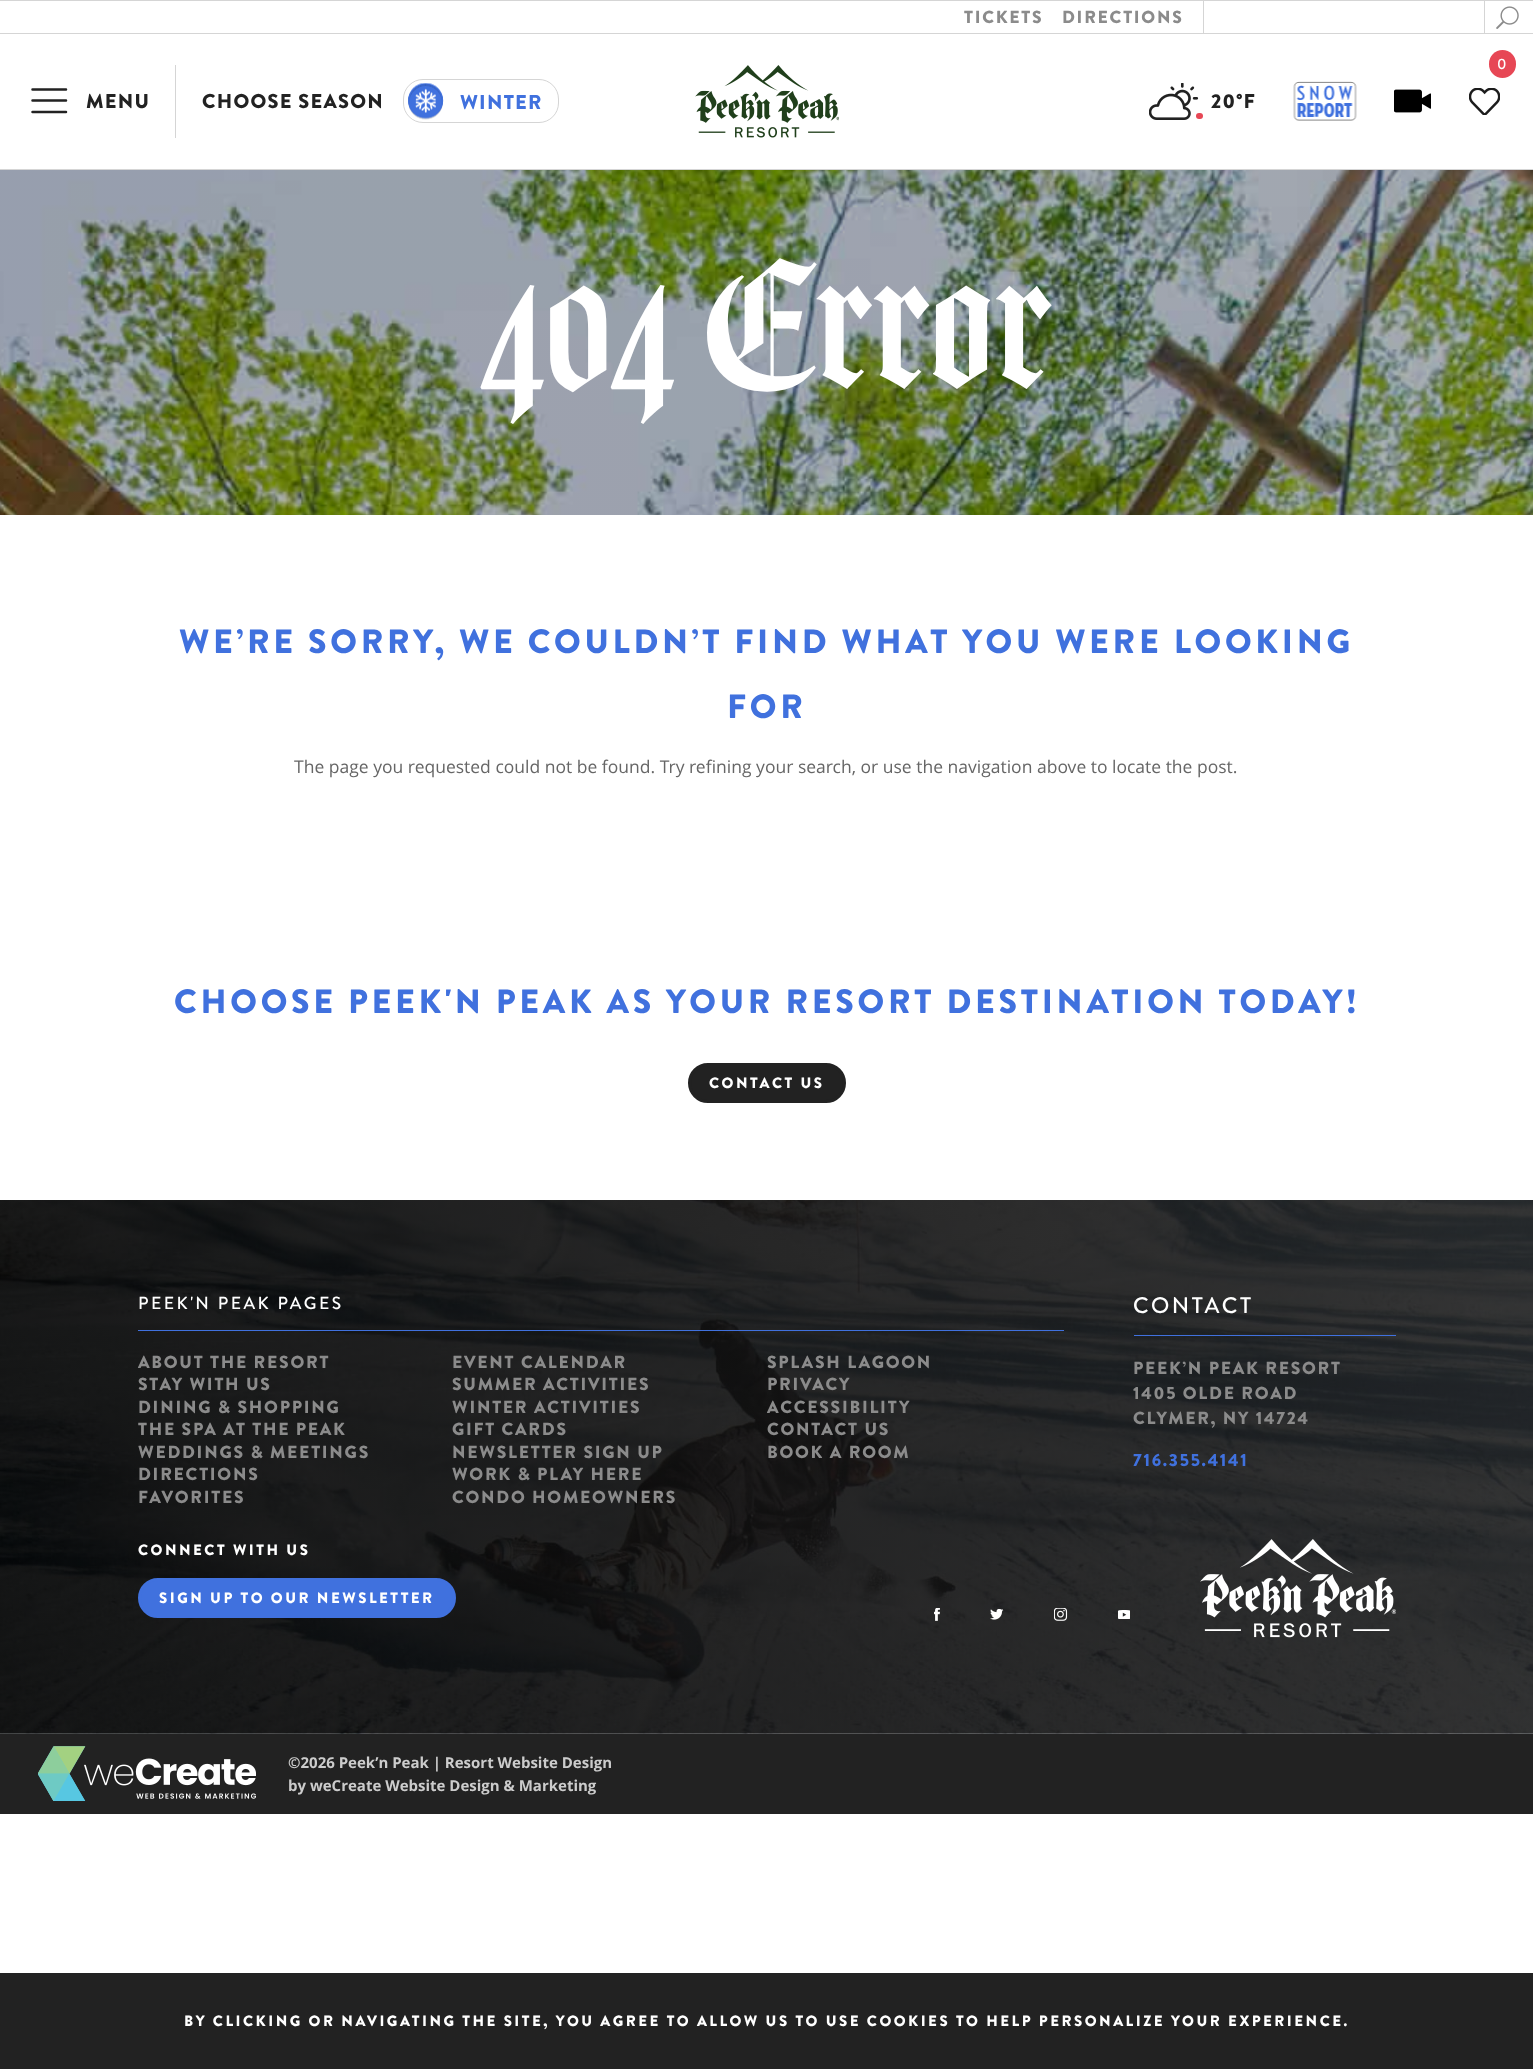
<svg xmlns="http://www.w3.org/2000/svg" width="1533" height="2069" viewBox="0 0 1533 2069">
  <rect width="100%" height="100%" fill="#ffffff"/>
  <rect x="0" y="0" width="1533" height="1" fill="#d5d5d5"/>
  <text x="964" y="23" font-family="Brandon Grotesque" font-size="17.5" font-weight="900" letter-spacing="1.75" fill="#8b8b8b">TICKETS</text>
  <text x="1062" y="23" font-family="Brandon Grotesque" font-size="17.5" font-weight="900" letter-spacing="1.75" fill="#8b8b8b">DIRECTIONS</text>
  <rect x="1203" y="1" width="1" height="32" fill="#d5d5d5"/>
  <rect x="1484" y="1" width="1" height="32" fill="#d5d5d5"/>
  <image x="1496" y="6" width="23" height="23" href="img1.png"/>
  <rect x="0" y="33" width="1533" height="1" fill="#d5d5d5"/>
  <rect x="0" y="169" width="1533" height="1" fill="#d5d5d5"/>
  <path d="M32.5 100.5H66M32.5 89.5H66M32.5 112H66" fill="none" stroke="#222222" stroke-width="2.5" stroke-linecap="round"/>
  <text x="86" y="108" font-family="Brandon Grotesque" font-size="20" font-weight="900" letter-spacing="1.25" fill="#222222">MENU</text>
  <rect x="175" y="65" width="1" height="73" fill="#d5d5d5"/>
  <text x="202" y="108" font-family="Brandon Grotesque" font-size="20" font-weight="900" letter-spacing="1.25" fill="#222222">CHOOSE SEASON</text>
  <rect x="403.5" y="79.5" width="155" height="43" rx="19.5" fill="none" stroke="#d5d5d5"/>
  <image x="408" y="83" width="36" height="37" href="img2.png"/>
  <text x="460" y="109" font-family="Brandon Grotesque" font-size="20" font-weight="900" letter-spacing="1.25" fill="#4071de">WINTER</text>
  <image x="695" y="65" width="144" height="73" href="img3.png"/>
  <rect x="1489" y="50" width="27" height="28" rx="13.5" fill="#e74755"/>
  <text x="1497" y="69" font-family="Brandon Grotesque" font-size="15" font-weight="500" letter-spacing="1.25" fill="#ffffff">0</text>
  <image x="1469" y="88" width="31" height="27" href="img4.png"/>
  <image x="1149" y="83" width="50" height="37" href="img5.png"/>
  <text x="1211" y="108" font-family="Brandon Grotesque" font-size="20" font-weight="900" letter-spacing="1.25" fill="#222222">20°F</text>
  <rect x="1196" y="113" width="7" height="6" rx="3" fill="#e74755"/>
  <image x="1293" y="81" width="64" height="40" href="img6.png"/>
  <image x="1394" y="89" width="37" height="24" href="img7.png"/>
  <image x="0" y="170" width="1533" height="345" href="img8.png"/>
  <text x="481" y="389" font-family="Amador" font-size="175" fill="#ffffff">404 Error</text>
  <text x="179" y="653" font-family="Brandon Grotesque" font-size="33.75" font-weight="900" letter-spacing="3.75" fill="#4071de">WE’RE SORRY, WE COULDN’T FIND WHAT YOU WERE LOOKING</text>
  <text x="727" y="718" font-family="Brandon Grotesque" font-size="33.75" font-weight="900" letter-spacing="3.75" fill="#4071de">FOR</text>
  <text x="294" y="773" font-family="Open Sans" font-size="17.5" fill="#666666">The page you requested could not be found. Try refining your search, or use the navigation above to locate the post.</text>
  <text x="174" y="1013" font-family="Brandon Grotesque" font-size="33.75" font-weight="900" letter-spacing="3.75" fill="#4071de">CHOOSE PEEK'N PEAK AS YOUR RESORT DESTINATION TODAY!</text>
  <rect x="689.5" y="1064.5" width="155" height="37" rx="18.5" fill="#222222" stroke="#222222" stroke-width="3"/>
  <text x="709" y="1088" font-family="Brandon Grotesque" font-size="15" font-weight="900" letter-spacing="2.5" fill="#ffffff">CONTACT US</text>
  <image x="0" y="1200" width="1533" height="534" href="img9.png"/>
  <text x="138" y="1309" font-family="Brandon Grotesque" font-size="17.5" font-weight="500" letter-spacing="2.5" fill="#ffffff">PEEK'N PEAK PAGES</text>
  <rect x="138" y="1330" width="926" height="1" fill="#4071de"/>
  <text x="138" y="1368" font-family="Brandon Grotesque" font-size="17.5" font-weight="900" letter-spacing="1.75" fill="#8b8b8b">ABOUT THE RESORT</text>
  <text x="452" y="1368" font-family="Brandon Grotesque" font-size="17.5" font-weight="900" letter-spacing="1.75" fill="#8b8b8b">EVENT CALENDAR</text>
  <text x="767" y="1368" font-family="Brandon Grotesque" font-size="17.5" font-weight="900" letter-spacing="1.75" fill="#8b8b8b">SPLASH LAGOON</text>
  <text x="138" y="1390" font-family="Brandon Grotesque" font-size="17.5" font-weight="900" letter-spacing="1.75" fill="#8b8b8b">STAY WITH US</text>
  <text x="452" y="1390" font-family="Brandon Grotesque" font-size="17.5" font-weight="900" letter-spacing="1.75" fill="#8b8b8b">SUMMER ACTIVITIES</text>
  <text x="767" y="1390" font-family="Brandon Grotesque" font-size="17.5" font-weight="900" letter-spacing="1.75" fill="#8b8b8b">PRIVACY</text>
  <text x="138" y="1413" font-family="Brandon Grotesque" font-size="17.5" font-weight="900" letter-spacing="1.75" fill="#8b8b8b">DINING &amp; SHOPPING</text>
  <text x="452" y="1413" font-family="Brandon Grotesque" font-size="17.5" font-weight="900" letter-spacing="1.75" fill="#8b8b8b">WINTER ACTIVITIES</text>
  <text x="767" y="1413" font-family="Brandon Grotesque" font-size="17.5" font-weight="900" letter-spacing="1.75" fill="#8b8b8b">ACCESSIBILITY</text>
  <text x="138" y="1435" font-family="Brandon Grotesque" font-size="17.5" font-weight="900" letter-spacing="1.75" fill="#8b8b8b">THE SPA AT THE PEAK</text>
  <text x="452" y="1435" font-family="Brandon Grotesque" font-size="17.5" font-weight="900" letter-spacing="1.75" fill="#8b8b8b">GIFT CARDS</text>
  <text x="767" y="1435" font-family="Brandon Grotesque" font-size="17.5" font-weight="900" letter-spacing="1.75" fill="#8b8b8b">CONTACT US</text>
  <text x="138" y="1458" font-family="Brandon Grotesque" font-size="17.5" font-weight="900" letter-spacing="1.75" fill="#8b8b8b">WEDDINGS &amp; MEETINGS</text>
  <text x="452" y="1458" font-family="Brandon Grotesque" font-size="17.5" font-weight="900" letter-spacing="1.75" fill="#8b8b8b">NEWSLETTER SIGN UP</text>
  <text x="767" y="1458" font-family="Brandon Grotesque" font-size="17.5" font-weight="900" letter-spacing="1.75" fill="#8b8b8b">BOOK A ROOM</text>
  <text x="138" y="1480" font-family="Brandon Grotesque" font-size="17.5" font-weight="900" letter-spacing="1.75" fill="#8b8b8b">DIRECTIONS</text>
  <text x="452" y="1480" font-family="Brandon Grotesque" font-size="17.5" font-weight="900" letter-spacing="1.75" fill="#8b8b8b">WORK &amp; PLAY HERE</text>
  <text x="138" y="1503" font-family="Brandon Grotesque" font-size="17.5" font-weight="900" letter-spacing="1.75" fill="#8b8b8b">FAVORITES</text>
  <text x="452" y="1503" font-family="Brandon Grotesque" font-size="17.5" font-weight="900" letter-spacing="1.75" fill="#8b8b8b">CONDO HOMEOWNERS</text>
  <text x="1133" y="1313" font-family="Brandon Grotesque" font-size="22.5" font-weight="500" letter-spacing="2.5" fill="#ffffff">CONTACT</text>
  <rect x="1134" y="1335" width="262" height="1" fill="#4071de"/>
  <text x="1133" y="1374" font-family="Brandon Grotesque" font-size="17.5" font-weight="900" letter-spacing="1.75" fill="#8b8b8b">PEEK’N PEAK RESORT</text>
  <text x="1133" y="1399" font-family="Brandon Grotesque" font-size="17.5" font-weight="900" letter-spacing="1.75" fill="#8b8b8b">1405 OLDE ROAD</text>
  <text x="1133" y="1424" font-family="Brandon Grotesque" font-size="17.5" font-weight="900" letter-spacing="1.75" fill="#8b8b8b">CLYMER, NY 14724</text>
  <text x="1133" y="1466" font-family="Brandon Grotesque" font-size="17.5" font-weight="900" letter-spacing="1.75" fill="#4071de">716.355.4141</text>
  <text x="138" y="1555" font-family="Brandon Grotesque" font-size="15" font-weight="900" letter-spacing="2.5" fill="#ffffff">CONNECT WITH US</text>
  <rect x="139.5" y="1579.5" width="315" height="37" rx="18.5" fill="#4071de" stroke="#4071de" stroke-width="3"/>
  <text x="159" y="1603" font-family="Brandon Grotesque" font-size="15" font-weight="900" letter-spacing="2.5" fill="#ffffff">SIGN UP TO OUR NEWSLETTER</text>
  <image x="1200" y="1539" width="196" height="99" href="img10.png"/>
  <image x="934" y="1608" width="6" height="13" href="img11.png"/>
  <image x="990" y="1609" width="14" height="11" href="img12.png"/>
  <image x="1054" y="1608" width="14" height="13" href="img13.png"/>
  <image x="1118" y="1610" width="12" height="9" href="img14.png"/>
  <rect x="0" y="1734" width="1533" height="80" fill="#222222"/>
  <image x="38" y="1746" width="218" height="55" href="img15.png"/>
  <text x="288" y="1768" font-family="Open Sans" font-size="15" font-weight="bold" fill="#cccccc">©2026 Peek’n Peak | Resort Website Design</text>
  <text x="288" y="1791" font-family="Open Sans" font-size="15" font-weight="bold" fill="#cccccc">by weCreate Website Design &amp; Marketing</text>
  <rect x="0" y="1973" width="1533" height="96" fill="#222222"/>
  <text x="184" y="2026" font-family="Brandon Grotesque" font-size="15" font-weight="900" letter-spacing="2.5" fill="#ffffff">BY CLICKING OR NAVIGATING THE SITE, YOU AGREE TO ALLOW US TO USE COOKIES TO HELP PERSONALIZE YOUR EXPERIENCE.</text>
</svg>
